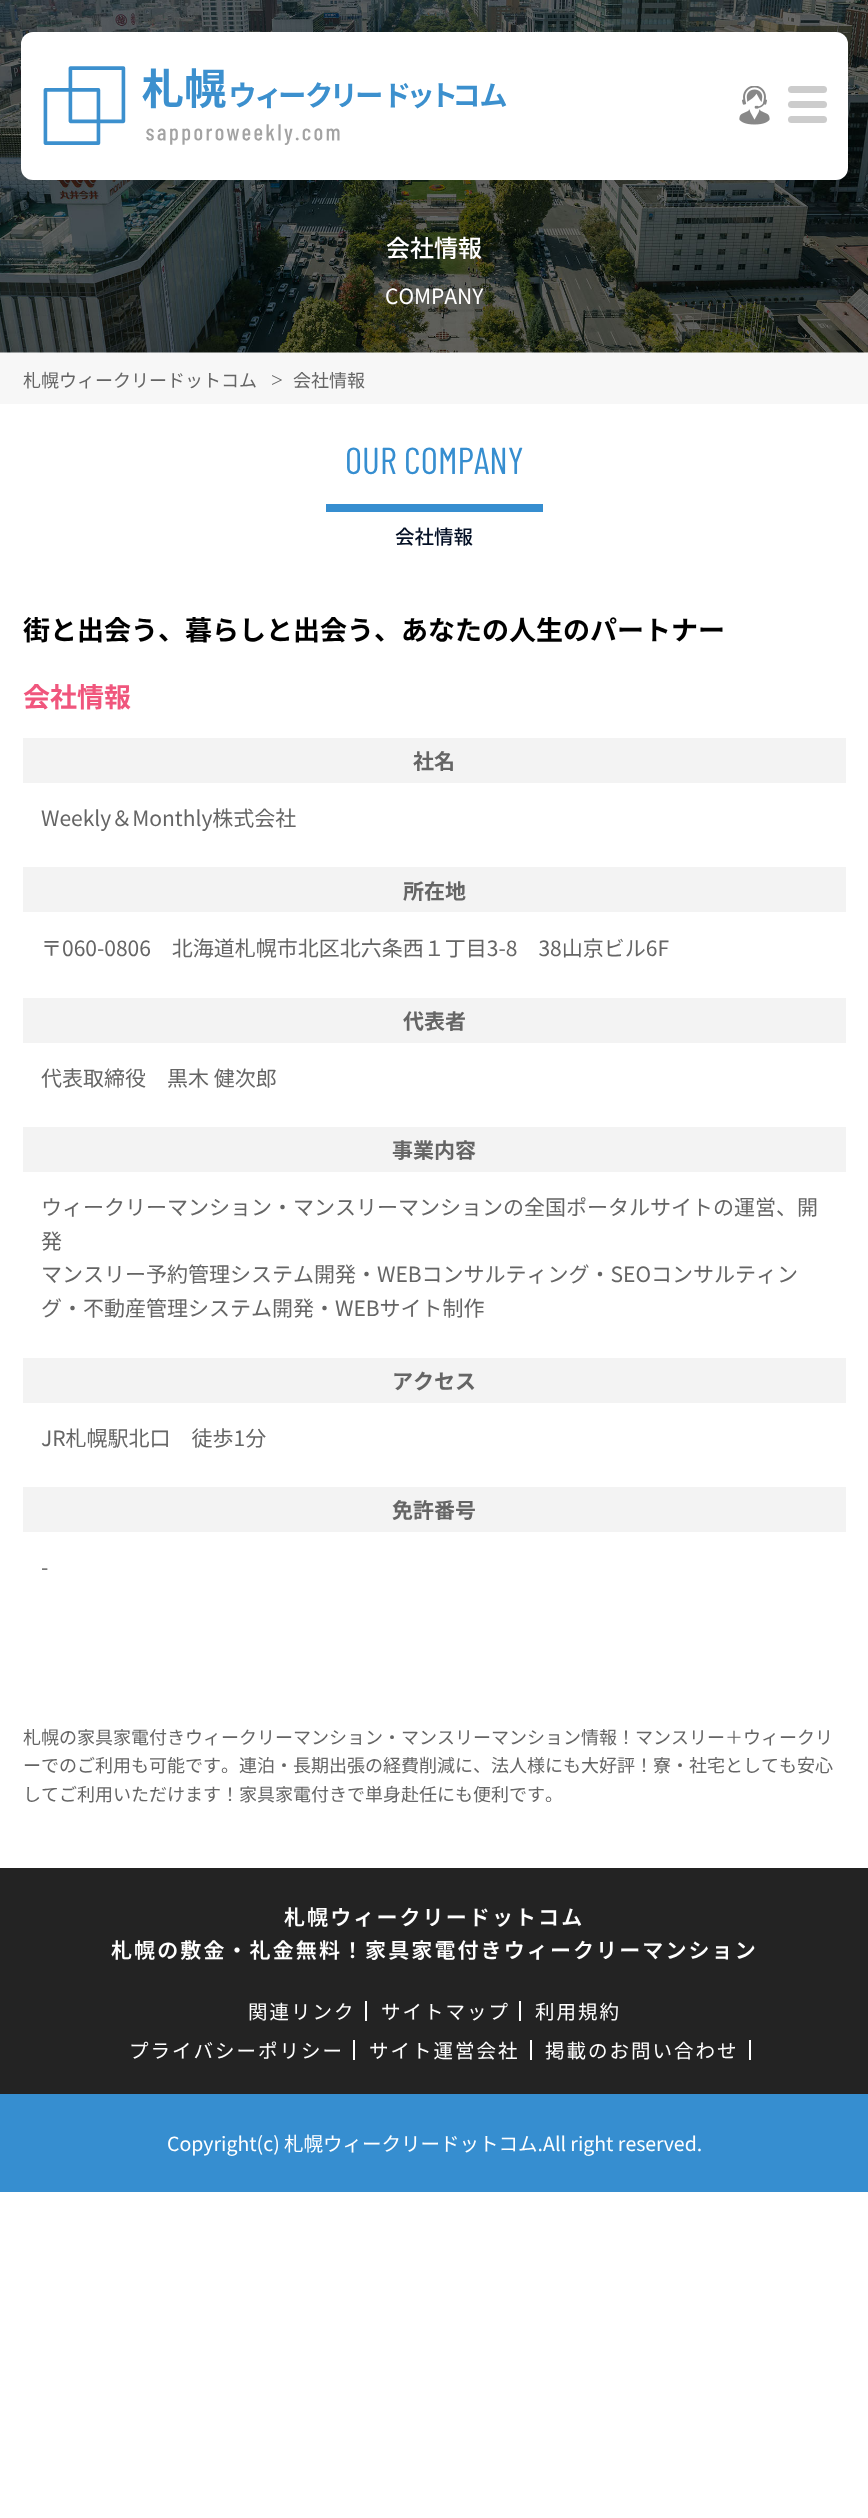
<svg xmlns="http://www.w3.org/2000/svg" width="868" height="2518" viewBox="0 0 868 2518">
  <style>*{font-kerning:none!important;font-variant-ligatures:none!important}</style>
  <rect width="100%" height="100%" fill="#ffffff"/>
  <image x="0" y="0" width="868" height="353" href="img1.png"/>
  <rect x="21" y="32" width="827" height="148" rx="12" fill="#ffffff"/>
  <image x="43" y="66" width="464" height="79" href="img2.png"/>
  <image x="739" y="86" width="31" height="39" href="img3.png"/>
  <rect x="788" y="86" width="39" height="7" rx="3.5" fill="#cccccc"/>
  <rect x="788" y="101" width="39" height="7" rx="3.5" fill="#cccccc"/>
  <rect x="788" y="116" width="39" height="7" rx="3.5" fill="#cccccc"/>
  <text x="386" y="257" font-family="Noto Sans JP" font-size="24" font-weight="500" fill="#ffffff">会社情報</text>
  <text x="385" y="304" font-family="Noto Sans JP" font-size="21" fill="#ffffff">COMPANY</text>
  <rect x="0" y="353" width="868" height="51" fill="#f7f7f7"/>
  <text x="23" y="387" font-family="Noto Sans JP" font-size="18" fill="#656565">札幌ウィークリードットコム</text>
  <text x="271" y="387" font-family="Liberation Serif" font-size="21" fill="#656565">&gt;</text>
  <text x="293" y="387" font-family="Noto Sans JP" font-size="18" fill="#656565">会社情報</text>
  <rect x="326" y="504" width="217" height="8" fill="#368ed0"/>
  <text x="345" y="474" font-family="Barlow Condensed" font-size="37.5" fill="#368ed0">OUR COMPANY</text>
  <text x="395" y="544" font-family="Noto Sans JP" font-size="19.5" font-weight="500" fill="#041025">会社情報</text>
  <text x="23" y="640" font-family="Noto Sans JP" font-size="27" font-weight="bold" fill="#000000">街と出会う、暮らしと出会う、あなたの人生のパートナー</text>
  <text x="23" y="707" font-family="Noto Sans JP" font-size="27" font-weight="bold" fill="#f0567d">会社情報</text>
  <rect x="23" y="738" width="823" height="45" fill="#f3f3f3"/>
  <text x="413" y="769" font-family="Noto Sans JP" font-size="21" font-weight="bold" fill="#656565">社名</text>
  <text x="41" y="826" font-family="Noto Sans JP" font-size="21" fill="#656565">Weekly＆Monthly株式会社</text>
  <rect x="23" y="867" width="823" height="45" fill="#f3f3f3"/>
  <text x="403" y="899" font-family="Noto Sans JP" font-size="21" font-weight="bold" fill="#656565">所在地</text>
  <text x="41" y="956" font-family="Noto Sans JP" font-size="21" fill="#656565">〒060-0806　北海道札幌市北区北六条西１丁目3-8　38山京ビル6F</text>
  <rect x="23" y="998" width="823" height="45" fill="#f3f3f3"/>
  <text x="403" y="1029" font-family="Noto Sans JP" font-size="21" font-weight="bold" fill="#656565">代表者</text>
  <text x="41" y="1086" font-family="Noto Sans JP" font-size="21" fill="#656565">代表取締役　黒木 健次郎</text>
  <rect x="23" y="1127" width="823" height="45" fill="#f3f3f3"/>
  <text x="392" y="1158" font-family="Noto Sans JP" font-size="21" font-weight="bold" fill="#656565">事業内容</text>
  <text x="41" y="1215" font-family="Noto Sans JP" font-size="21" fill="#656565">ウィークリーマンション・マンスリーマンションの全国ポータルサイトの運営、開</text>
  <text x="41" y="1249" font-family="Noto Sans JP" font-size="21" fill="#656565">発</text>
  <text x="41" y="1282" font-family="Noto Sans JP" font-size="21" fill="#656565">マンスリー予約管理システム開発・WEBコンサルティング・SEOコンサルティン</text>
  <text x="41" y="1316" font-family="Noto Sans JP" font-size="21" fill="#656565">グ・不動産管理システム開発・WEBサイト制作</text>
  <rect x="23" y="1358" width="823" height="45" fill="#f3f3f3"/>
  <text x="392" y="1389" font-family="Noto Sans JP" font-size="21" font-weight="bold" fill="#656565">アクセス</text>
  <text x="41" y="1446" font-family="Noto Sans JP" font-size="21" fill="#656565">JR札幌駅北口　徒歩1分</text>
  <rect x="23" y="1487" width="823" height="45" fill="#f3f3f3"/>
  <text x="392" y="1518" font-family="Noto Sans JP" font-size="21" font-weight="bold" fill="#656565">免許番号</text>
  <text x="41" y="1575" font-family="Noto Sans JP" font-size="21" fill="#656565">-</text>
  <text x="23" y="1744" font-family="Noto Sans JP" font-size="18" fill="#656565">札幌の家具家電付きウィークリーマンション・マンスリーマンション情報！マンスリー＋ウィークリ</text>
  <text x="23" y="1772" font-family="Noto Sans JP" font-size="18" fill="#656565">ーでのご利用も可能です。連泊・長期出張の経費削減に、法人様にも大好評！寮・社宅として</text>
  <text x="779" y="1772" font-family="Noto Sans JP" font-size="18" fill="#656565">も安心</text>
  <text x="23" y="1801" font-family="Noto Sans JP" font-size="18" fill="#656565">してご利用いただけます！家具家電付きで単身赴任にも便利です。</text>
  <rect x="0" y="1868" width="868" height="226" fill="#232323"/>
  <text x="284" y="1925" font-family="Noto Sans JP" font-size="21" font-weight="600" letter-spacing="2.1" fill="#ffffff">札幌ウィークリードットコム</text>
  <text x="111" y="1958" font-family="Noto Sans JP" font-size="21" font-weight="600" letter-spacing="2.1" fill="#ffffff">札幌の敷金・礼金無料！家具家電付きウィークリーマンション</text>
  <rect x="365" y="2001" width="2" height="20" fill="#ffffff"/>
  <text x="248" y="2019" font-family="Noto Sans JP" font-size="19.5" letter-spacing="2" fill="#ffffff">関連リンク</text>
  <rect x="519" y="2001" width="2" height="20" fill="#ffffff"/>
  <text x="381" y="2019" font-family="Noto Sans JP" font-size="19.5" letter-spacing="2" fill="#ffffff">サイトマップ</text>
  <text x="535" y="2019" font-family="Noto Sans JP" font-size="19.5" letter-spacing="2" fill="#ffffff">利用規約</text>
  <rect x="353" y="2040" width="2" height="20" fill="#ffffff"/>
  <text x="129" y="2058" font-family="Noto Sans JP" font-size="19.5" letter-spacing="2" fill="#ffffff">プライバシーポリシー</text>
  <rect x="530" y="2040" width="2" height="20" fill="#ffffff"/>
  <text x="369" y="2058" font-family="Noto Sans JP" font-size="19.5" letter-spacing="2" fill="#ffffff">サイト運営会社</text>
  <rect x="749" y="2040" width="2" height="20" fill="#ffffff"/>
  <text x="545" y="2058" font-family="Noto Sans JP" font-size="19.5" letter-spacing="2" fill="#ffffff">掲載のお問い合わせ</text>
  <rect x="0" y="2094" width="868" height="98" fill="#368ed0"/>
  <text x="167" y="2151" font-family="Noto Sans JP" font-size="19.5" fill="#ffffff">Copyright(c) 札幌ウィークリードットコム.All right reserved.</text>
</svg>
